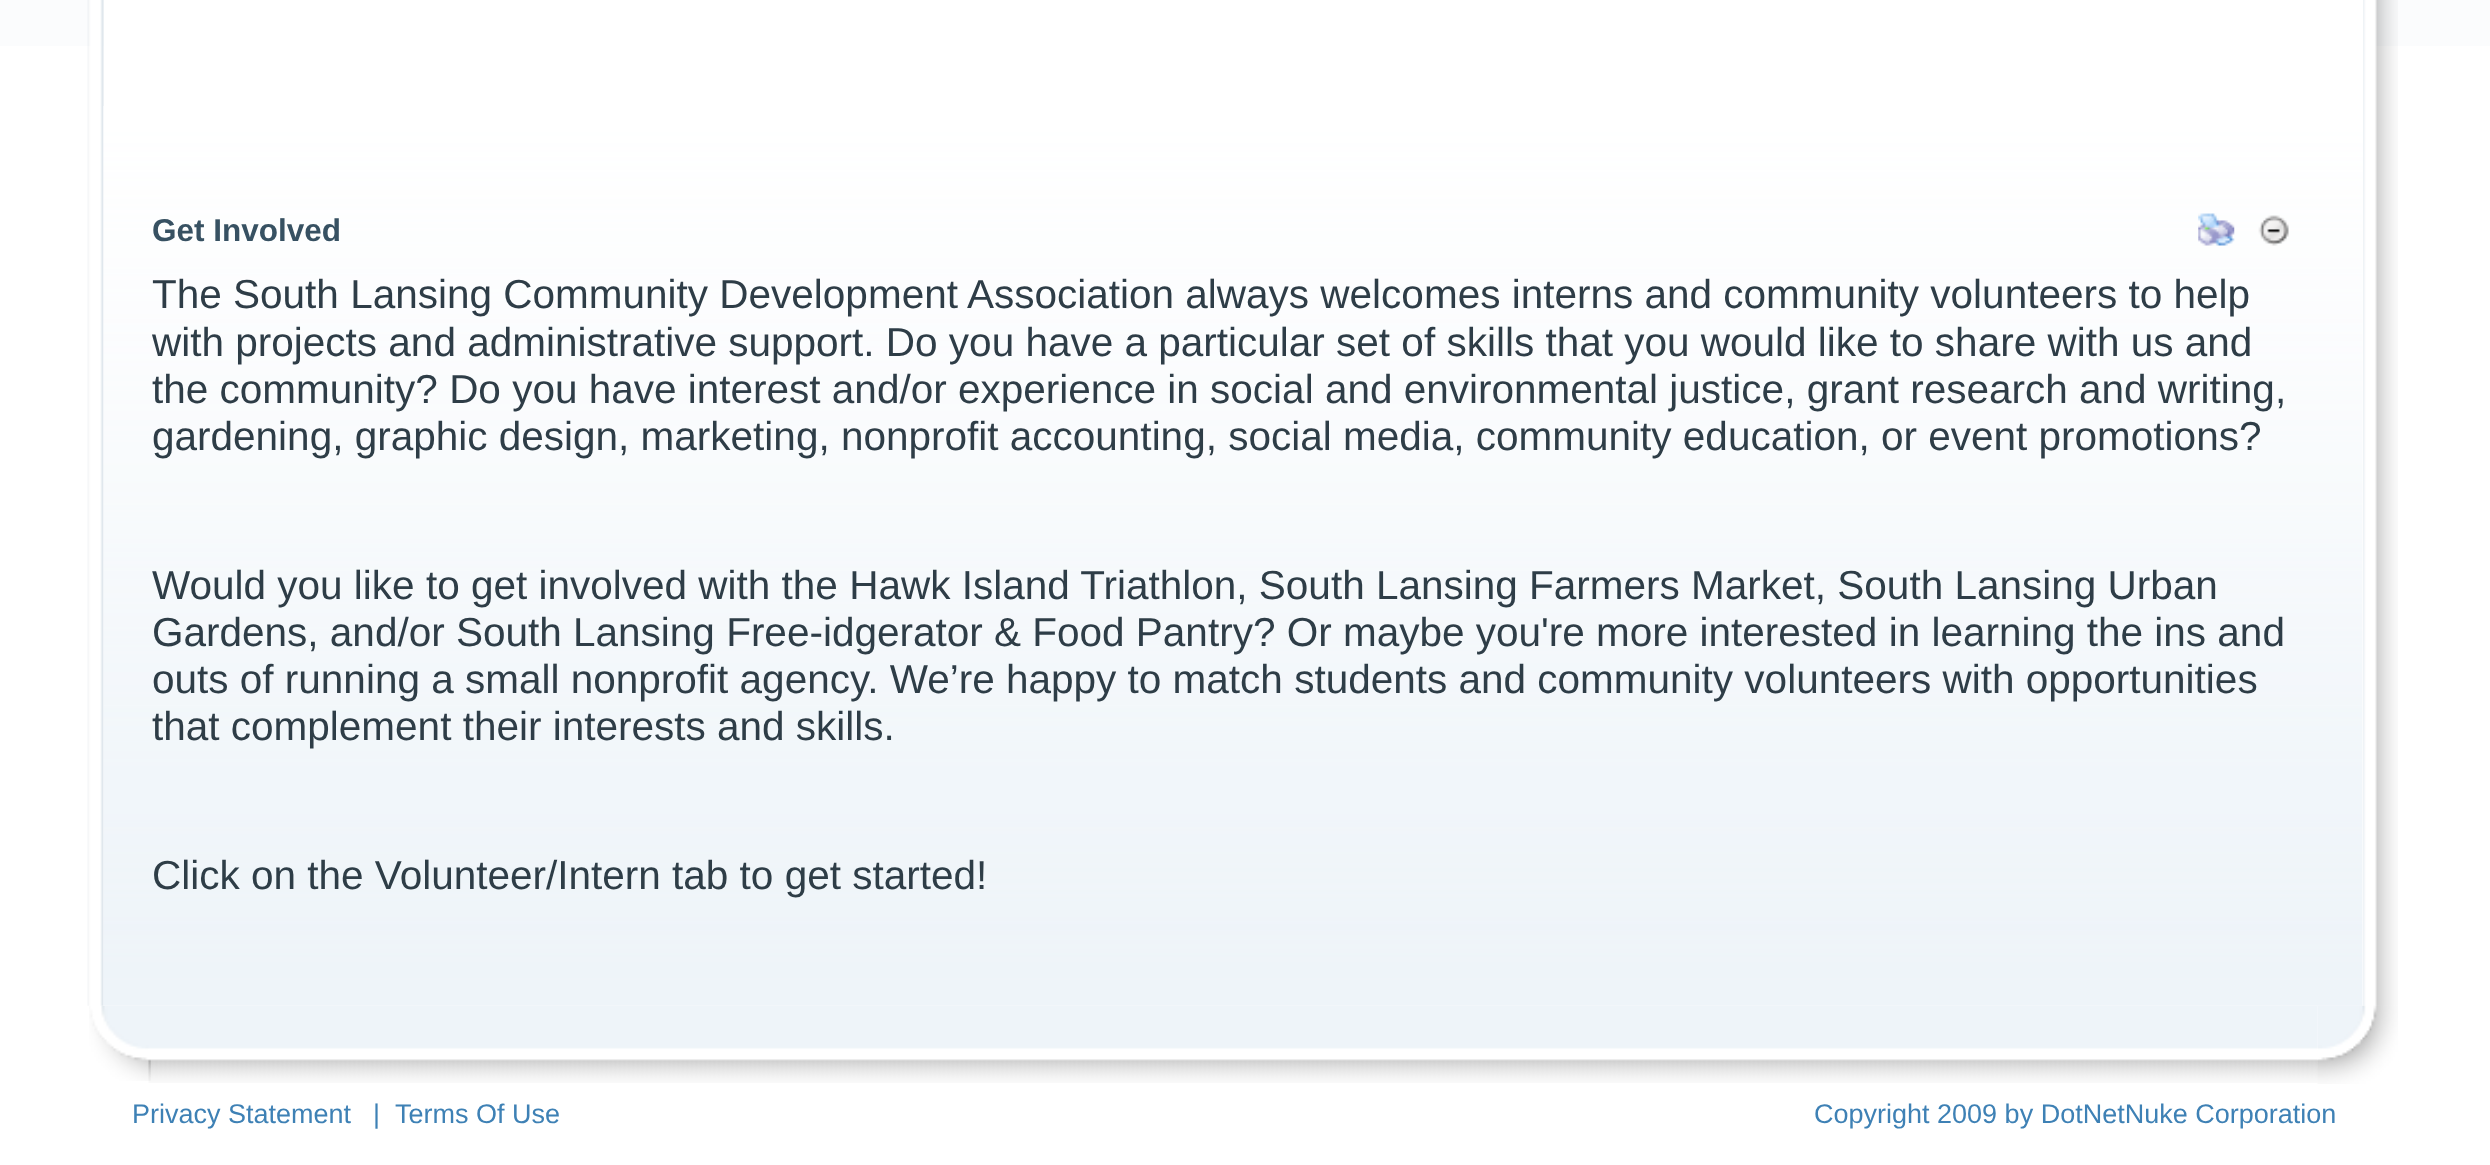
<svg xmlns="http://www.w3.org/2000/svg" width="2490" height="1165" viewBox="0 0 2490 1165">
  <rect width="100%" height="100%" fill="#ffffff"/>
  <rect x="0" y="0" width="2490" height="46" fill="#fbfcfd"/>
  <image x="87" y="0" width="17" height="1006" href="img1.png"/>
  <image x="2363" y="0" width="35" height="1006" href="img2.png"/>
  <rect x="104" y="0" width="2259" height="46" fill="#ffffff"/>
  <image x="103" y="106" width="2260" height="900" href="img3.png"/>
  <text x="152" y="241" font-family="Liberation Sans" font-size="31.5" font-weight="bold" fill="#375162">Get Involved</text>
  <image x="2198" y="213" width="37" height="33" href="img4.png"/>
  <image x="2258" y="215" width="31" height="31" href="img5.png"/>
  <text x="152" y="308" font-family="Liberation Sans" font-size="40.5" fill="#2e3d47">The South Lansing Community Development Association always welcomes interns and community volunteers to help</text>
  <text x="152" y="356" font-family="Liberation Sans" font-size="40.5" fill="#2e3d47">with projects and administrative support. Do you have a particular set of skills that you would like to share with us and</text>
  <text x="152" y="403" font-family="Liberation Sans" font-size="40.5" fill="#2e3d47">the community? Do you have interest and/or experience in social and environmental justice, grant research and writing,</text>
  <text x="152" y="450" font-family="Liberation Sans" font-size="40.5" fill="#2e3d47">gardening, graphic design, marketing, nonprofit accounting, social media, community education, or event promotions?</text>
  <text x="152" y="599" font-family="Liberation Sans" font-size="40.5" fill="#2e3d47">Would you like to get involved with the Hawk Island Triathlon, South Lansing Farmers Market, South Lansing Urban</text>
  <text x="152" y="646" font-family="Liberation Sans" font-size="40.5" fill="#2e3d47">Gardens, and/or South Lansing Free-idgerator &amp; Food Pantry? Or maybe you're more interested in learning the ins and</text>
  <text x="152" y="693" font-family="Liberation Sans" font-size="40.5" fill="#2e3d47">outs of running a small nonprofit agency. We’re happy to match students and community volunteers with opportunities</text>
  <text x="152" y="740" font-family="Liberation Sans" font-size="40.5" fill="#2e3d47">that complement their interests and skills.</text>
  <text x="152" y="889" font-family="Liberation Sans" font-size="40.5" fill="#2e3d47">Click on the Volunteer/Intern tab to get started!</text>
  <image x="89" y="1006" width="62" height="75" href="img6.png"/>
  <image x="2317" y="1005" width="81" height="79" href="img7.png"/>
  <image x="148" y="1006" width="2170" height="77" href="img8.png"/>
  <text x="132" y="1123" font-family="Liberation Sans" font-size="27" fill="#3e81b5">Privacy Statement</text>
  <text x="373" y="1123" font-family="Liberation Sans" font-size="27" fill="#3e81b5">|</text>
  <text x="395" y="1123" font-family="Liberation Sans" font-size="27" fill="#3e81b5">Terms Of Use</text>
  <text x="1814" y="1123" font-family="Liberation Sans" font-size="27" fill="#3e81b5">Copyright 2009 by DotNetNuke Corporation</text>
</svg>
